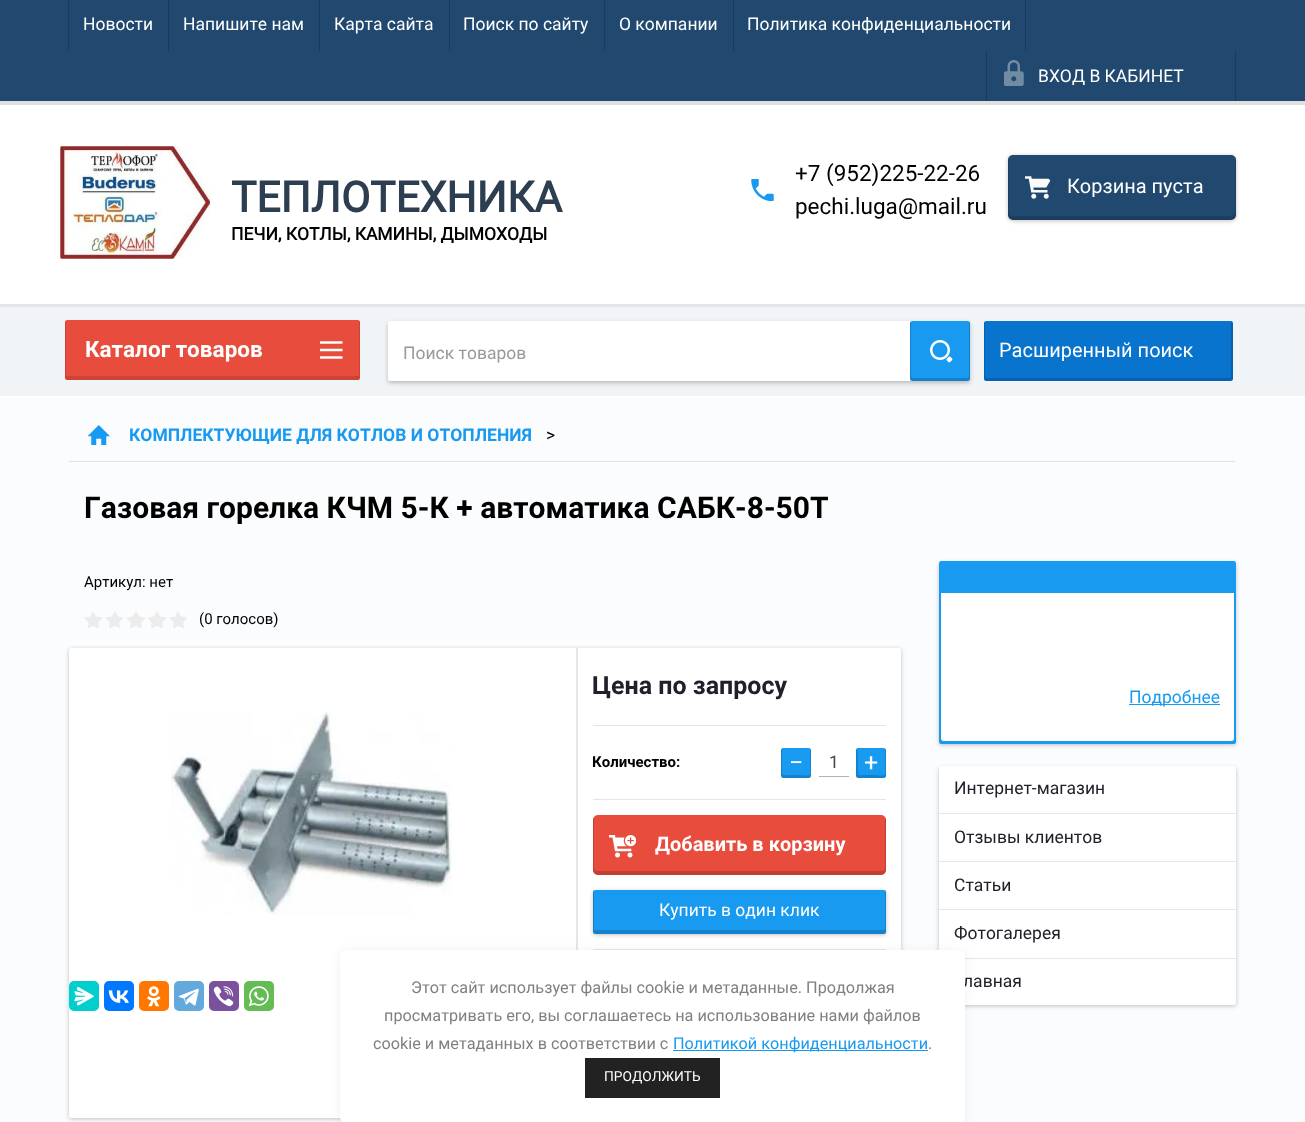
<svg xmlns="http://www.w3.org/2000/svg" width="1305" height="1122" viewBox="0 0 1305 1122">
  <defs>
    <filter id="blur1" x="-50%" y="-200%" width="200%" height="500%"><feGaussianBlur stdDeviation="2"/></filter>
    <filter id="blur2" x="-50%" y="-200%" width="200%" height="500%"><feGaussianBlur stdDeviation="6"/></filter>
  </defs>
  <rect width="100%" height="100%" fill="#fbfcfd"/>
  <rect x="0" y="105" width="1305" height="199" fill="#ffffff"/>
  <rect x="0" y="101" width="1305" height="4" fill="#e0e0e0"/>
  <rect x="0" y="0" width="1305" height="101" fill="#21486e"/>
  <rect x="68" y="0" width="1" height="51" fill="#1a3a58"/>
  <text x="83" y="30" font-family="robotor" font-size="17.5" fill="#ffffff">Новости</text>
  <rect x="168" y="0" width="1" height="51" fill="#1a3a58"/>
  <text x="183" y="30" font-family="robotor" font-size="17.5" fill="#ffffff">Напишите нам</text>
  <rect x="319" y="0" width="1" height="51" fill="#1a3a58"/>
  <text x="334" y="30" font-family="robotor" font-size="17.5" fill="#ffffff">Карта сайта</text>
  <rect x="449" y="0" width="1" height="51" fill="#1a3a58"/>
  <text x="463" y="30" font-family="robotor" font-size="17.5" fill="#ffffff">Поиск по сайту</text>
  <rect x="604" y="0" width="1" height="51" fill="#1a3a58"/>
  <text x="619" y="30" font-family="robotor" font-size="17.5" fill="#ffffff">О компании</text>
  <rect x="733" y="0" width="1" height="51" fill="#1a3a58"/>
  <text x="747" y="30" font-family="robotor" font-size="17.5" fill="#ffffff">Политика конфиденциальности</text>
  <rect x="1025" y="0" width="1" height="51" fill="#1a3a58"/>
  <rect x="986" y="51" width="1" height="50" fill="#1a3a58"/>
  <image x="1004" y="60" width="20" height="26" href="img1.png"/>
  <text x="1038" y="82" font-family="robotor" font-size="17.5" fill="#ffffff">ВХОД В КАБИНЕТ</text>
  <rect x="1235" y="51" width="1" height="50" fill="#1a3a58"/>
  <image x="60" y="146" width="150" height="113" href="img2.png"/>
  <text x="231" y="212" font-family="robotor" font-size="42.5" font-weight="bold" fill="#2c3e50">ТЕПЛОТЕХНИКА</text>
  <text x="231" y="240" font-family="robotor" font-size="17.5" font-weight="bold" fill="#000000">ПЕЧИ, КОТЛЫ, КАМИНЫ, ДЫМОХОДЫ</text>
  <text x="795" y="181" font-family="robotor" font-size="22.5" fill="#000000">+7 (952)225-22-26</text>
  <image x="751" y="179" width="23" height="22" href="img3.png"/>
  <text x="795" y="214" font-family="robotor" font-size="22.5" fill="#000000">pechi.luga@mail.ru</text>
  <rect x="1008" y="156" width="228" height="65" rx="5" fill="#000000" fill-opacity="0.24" filter="url(#blur1)"/>
  <rect x="1008" y="155" width="228" height="65" rx="5" fill="#21486e"/>
  <path d="M1009 157C1008 158 1008 159 1008 160V215C1008 218 1010 220 1013 220H1231C1234 220 1236 218 1236 215V160C1236 159 1236 158 1235 157V203C1235 206 1237 216 1231 216H1012C1007 216 1009 204 1009 203Z" fill="#000000" fill-opacity="0.14"/>
  <image x="1025" y="176" width="25" height="23" href="img4.png"/>
  <text x="1067" y="193" font-family="robotor" font-size="20" fill="#ffffff">Корзина пуста</text>
  <rect x="0" y="396" width="1305" height="2" fill="#ffffff"/>
  <rect x="0" y="307" width="1305" height="89" fill="#f1f4f7"/>
  <rect x="0" y="304" width="1305" height="3" fill="#e3e5e8"/>
  <rect x="65" y="320" width="295" height="60" rx="2.5" fill="#e74c3c"/>
  <path d="M66 320C65 321 65 322 65 322V378C65 379 66 380 68 380H358C359 380 360 379 360 378V322C360 322 360 321 359 320V375C359 376 358 376 358 376H68C67 376 66 376 66 375Z" fill="#000000" fill-opacity="0.11"/>
  <text x="85" y="357" font-family="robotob" font-size="22.5" font-weight="bold" fill="#ffffff">Каталог товаров</text>
  <image x="320" y="341" width="23" height="18" href="img5.png"/>
  <rect x="939" y="563" width="297" height="182" rx="2.5" fill="#000000" fill-opacity="0.24" filter="url(#blur1)"/>
  <rect x="939" y="561" width="297" height="183" rx="2.5" fill="#189af1"/>
  <path d="M941 593H1234V738.5C1234 740 1233 741 1231.5 741H943.5C942 741 941 740 941 738.5Z" fill="#ffffff"/>
  <rect x="1129" y="704" width="91" height="1" fill="#189af1"/>
  <text x="1129" y="703" font-family="robotor" font-size="17.5" fill="#189af1">Подробнее</text>
  <rect x="939" y="768" width="297" height="238" rx="2.5" fill="#000000" fill-opacity="0.24" filter="url(#blur1)"/>
  <rect x="939" y="766" width="297" height="239" rx="2.5" fill="#ffffff"/>
  <text x="954" y="794" font-family="robotor" font-size="17.5" fill="#20202a">Интернет-магазин</text>
  <rect x="939" y="813" width="297" height="1" fill="#e6e6e6"/>
  <text x="954" y="843" font-family="robotor" font-size="17.5" fill="#20202a">Отзывы клиентов</text>
  <rect x="939" y="861" width="297" height="1" fill="#e6e6e6"/>
  <text x="954" y="891" font-family="robotor" font-size="17.5" fill="#20202a">Статьи</text>
  <rect x="939" y="909" width="297" height="1" fill="#e6e6e6"/>
  <text x="954" y="939" font-family="robotor" font-size="17.5" fill="#20202a">Фотогалерея</text>
  <rect x="965" y="958" width="271" height="1" fill="#e6e6e6"/>
  <text x="963" y="987" font-family="robotor" font-size="17.5" fill="#20202a">лавная</text>
  <rect x="388" y="323" width="582" height="60" rx="2.5" fill="#000000" fill-opacity="0.24" filter="url(#blur1)"/>
  <rect x="388" y="321" width="582" height="60" rx="2.5" fill="#ffffff"/>
  <text x="403" y="359" font-family="robotor" font-size="17.5" fill="#999999">Поиск товаров</text>
  <rect x="910" y="321" width="60" height="60" rx="2.5" fill="#189af1"/>
  <path d="M911 321C910 322 910 323 910 324V378C910 380 911 381 912 381H968C969 381 970 380 970 378V324C970 323 970 322 969 321V376L968 378H912L911 376Z" fill="#000000" fill-opacity="0.16"/>
  <image x="930" y="340" width="23" height="23" href="img6.png"/>
  <rect x="984" y="321" width="249" height="60" rx="2.5" fill="#0974cd"/>
  <path d="M985 321C984 322 984 323 984 324V378C984 380 985 381 986 381H1230C1232 381 1233 380 1233 378V324C1233 322 1232 321 1231 321V376C1231 377 1231 378 1230 378H986L985 376Z" fill="#000000" fill-opacity="0.16"/>
  <text x="999" y="357" font-family="robotor" font-size="20" fill="#ffffff">Расширенный поиск</text>
  <rect x="69" y="461" width="1166" height="1" fill="#e1e2e3"/>
  <image x="88" y="425" width="22" height="20" href="img7.png"/>
  <text x="129" y="441" font-family="robotob" font-size="17.5" font-weight="bold" fill="#189af1">КОМПЛЕКТУЮЩИЕ ДЛЯ КОТЛОВ И ОТОПЛЕНИЯ</text>
  <text x="546" y="441" font-family="robotor" font-size="17.5" fill="#000000">&gt;</text>
  <text x="84" y="518" font-family="robotob" font-size="30" font-weight="bold" fill="#000000">Газовая горелка КЧМ 5-К + автоматика САБК-8-50Т</text>
  <text x="84" y="587" font-family="robotor" font-size="15" fill="#000000">Артикул: нет</text>
  <image x="84" y="611" width="103" height="18" href="img8.png"/>
  <text x="199" y="624" font-family="robotor" font-size="15" fill="#000000">(0 голосов)</text>
  <rect x="69" y="649" width="832" height="470" rx="2.5" fill="#000000" fill-opacity="0.24" filter="url(#blur1)"/>
  <rect x="69" y="648" width="832" height="470" rx="2.5" fill="#ffffff"/>
  <image x="171" y="712" width="281" height="204" href="img9.png"/>
  <rect x="69" y="981" width="30" height="30" rx="5" fill="#03cece"/>
  <image x="74" y="987" width="20" height="19" href="img10.png"/>
  <rect x="104" y="981" width="30" height="30" rx="5" fill="#0077ff"/>
  <image x="108" y="990" width="21" height="13" href="img11.png"/>
  <rect x="139" y="981" width="30" height="30" rx="5" fill="#ff7700"/>
  <image x="147" y="986" width="14" height="21" href="img12.png"/>
  <rect x="174" y="981" width="30" height="30" rx="5" fill="#64a9dc"/>
  <image x="178" y="988" width="21" height="18" href="img13.png"/>
  <rect x="209" y="981" width="30" height="30" rx="5" fill="#7b519d"/>
  <image x="213" y="986" width="21" height="21" href="img14.png"/>
  <rect x="244" y="981" width="30" height="30" rx="5" fill="#65bc54"/>
  <image x="248" y="986" width="21" height="21" href="img15.png"/>
  <path d="M576 648V1118H900H578V648Z" fill="#e6e6e6"/>
  <text x="592" y="694" font-family="robotob" font-size="25" font-weight="bold" fill="#20202a">Цена по запросу</text>
  <rect x="593" y="725" width="293" height="1" fill="#e5e5e5"/>
  <rect x="593" y="799" width="293" height="1" fill="#e5e5e5"/>
  <text x="592" y="767" font-family="robotob" font-size="15" font-weight="bold" fill="#000000">Количество:</text>
  <rect x="781" y="748" width="30" height="30" rx="2.5" fill="#189af1"/>
  <path d="M783.5 748C782 748 781 749 781 750.5V775.5C781 777 782 778 783.5 778H808.5C810 778 811 777 811 775.5V750.5C811 749.5 810.5 749 810 748.5V764L810.5 772C810.5 775.5 808.5 775.5 806 775.5C800.5 775 796 775 790.5 775C781.5 775.5 782 776.5 782 767V752.5C782 751.5 782 748 784 748Z" fill="#000000" fill-opacity="0.16"/>
  <text x="789" y="771" font-family="robotor" font-size="25" fill="#ffffff">−</text>
  <rect x="819" y="776" width="30" height="1" fill="#b2b2b2"/>
  <text x="829" y="768" font-family="robotor" font-size="17.5" fill="#484848">1</text>
  <rect x="856" y="748" width="30" height="30" rx="2.5" fill="#189af1"/>
  <path d="M858.5 748C857 748 856 749 856 750.5V775.5C856 777 857 778 858.5 778H883.5C885 778 886 777 886 775.5V750.5C886 749.5 885.5 749 885 748.5V764L885.5 772C885.5 775.5 883.5 775.5 881 775.5C876 775 871 775 866 775C857 775.5 858 776.5 858 767.5V757L857.5 751C857.5 750 857.5 748 859 748Z" fill="#000000" fill-opacity="0.16"/>
  <text x="864" y="771" font-family="robotor" font-size="25" fill="#ffffff">+</text>
  <rect x="593" y="815" width="293" height="60" rx="5" fill="#e74c3c"/>
  <path d="M594 817C593 818 593 819 593 820V870C593 873 595 875 598 875H881C884 875 886 873 886 870V820C886 819 886 818 885 817V868C885 870 883 871 881 871H598C595 871 594 870 594 868Z" fill="#000000" fill-opacity="0.16"/>
  <image x="609" y="835" width="27" height="23" href="img16.png"/>
  <text x="655" y="851" font-family="robotob" font-size="20" font-weight="bold" fill="#ffffff">Добавить в корзину</text>
  <rect x="593" y="891" width="293" height="44" rx="2.5" fill="#000000" fill-opacity="0.24" filter="url(#blur1)"/>
  <rect x="593" y="890" width="293" height="44" rx="2.5" fill="#189af1"/>
  <path d="M594 890C593 891 593 892 593 892V932C593 933 594 934 596 934H884C885 934 886 933 886 932V892C886 892 886 891 885 890V929L884 930H595C594 930 594 929 594 929Z" fill="#000000" fill-opacity="0.16"/>
  <text x="659" y="916" font-family="robotor" font-size="17.5" fill="#ffffff">Купить в один клик</text>
  <rect x="593" y="949" width="293" height="1" fill="#e5e5e5"/>
  <rect x="340" y="951" width="625" height="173" rx="6" fill="#000000" fill-opacity="0.06" filter="url(#blur2)"/>
  <rect x="340" y="950" width="625" height="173" rx="6" fill="#ffffff"/>
  <text x="411" y="993" font-family="robotor" font-size="16.25" fill="#808080">Этот сайт использует файлы cookie и метаданные. Продолжая</text>
  <text x="384" y="1021" font-family="robotor" font-size="16.25" fill="#808080">просматривать его, вы соглашаетесь на использование нами файлов</text>
  <text x="373" y="1049" font-family="robotor" font-size="16.25" fill="#808080">cookie и метаданных в соответствии с</text>
  <rect x="673" y="1050" width="255" height="1" fill="#189af1"/>
  <text x="673" y="1049" font-family="robotor" font-size="16.25" fill="#189af1">Политикой конфиденциальности</text>
  <text x="928" y="1049" font-family="robotor" font-size="16.25" fill="#808080">.</text>
  <rect x="585" y="1058" width="135" height="40" fill="#222222"/>
  <text x="604" y="1081" font-family="robotor" font-size="13.75" fill="#ffffff">ПРОДОЛЖИТЬ</text>
</svg>
